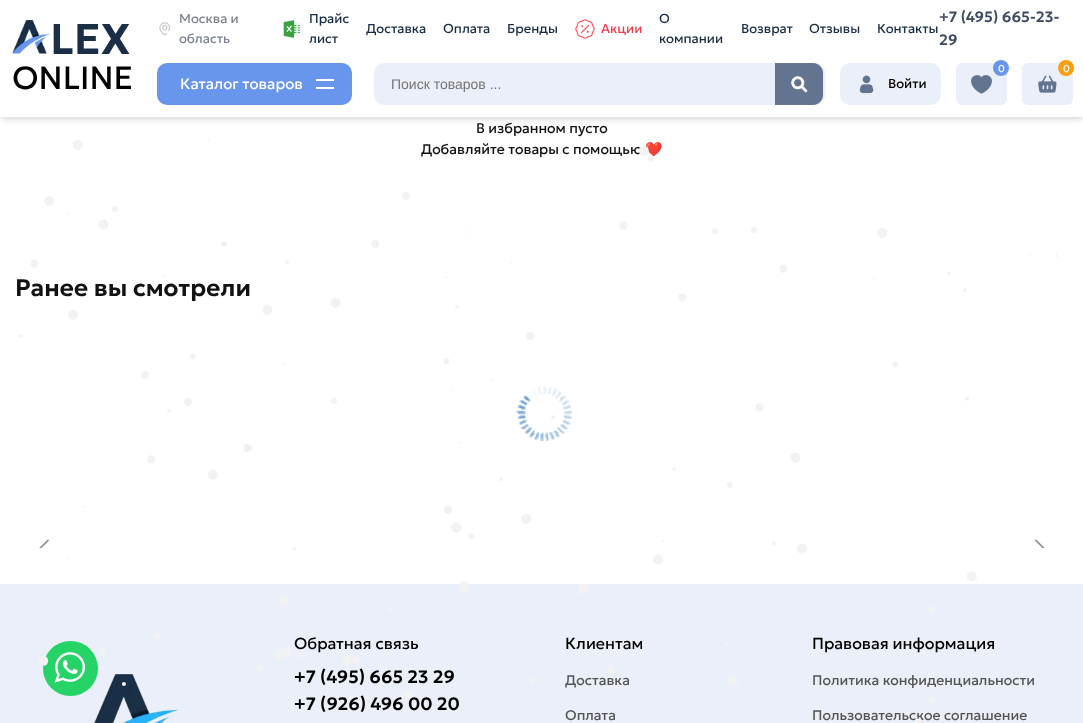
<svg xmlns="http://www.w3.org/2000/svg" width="1083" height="723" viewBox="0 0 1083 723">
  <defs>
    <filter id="blur1" x="-50%" y="-200%" width="200%" height="500%"><feGaussianBlur stdDeviation="2"/></filter>
    <filter id="blur2" x="-50%" y="-200%" width="200%" height="500%"><feGaussianBlur stdDeviation="3"/></filter>
  </defs>
  <rect width="100%" height="100%" fill="#ffffff"/>
  <rect x="1" y="3" width="1081" height="115" fill="#000000" fill-opacity="0.06" filter="url(#blur1)"/>
  <rect x="1" y="5" width="1081" height="115" fill="#000000" fill-opacity="0.1" filter="url(#blur2)"/>
  <rect x="0" y="0" width="1083" height="117" fill="#ffffff"/>
  <image x="12" y="20" width="38" height="34" href="img1.png"/>
  <text x="50" y="54" font-family="Geologica" font-size="43" font-weight="600" fill="#1a2e46">LEX</text>
  <text x="12" y="89" font-family="Geologica" font-size="32" fill="#000000">ONLINE</text>
  <image x="159" y="22" width="12" height="14" href="img2.png"/>
  <text x="179" y="23" font-family="Geologica" font-size="13" fill="#7c8490">Москва и</text>
  <text x="179" y="43" font-family="Geologica" font-size="13" fill="#7c8490">область</text>
  <image x="283" y="20" width="20" height="18" href="img3.png"/>
  <text x="309" y="23" font-family="Geologica" font-size="13" fill="#1a2e46">Прайс</text>
  <text x="309" y="43" font-family="Geologica" font-size="13" fill="#1a2e46">лист</text>
  <text x="366" y="33" font-family="Geologica" font-size="13" fill="#1a2e46">Доставка</text>
  <text x="443" y="33" font-family="Geologica" font-size="13" fill="#1a2e46">Оплата</text>
  <text x="507" y="33" font-family="Geologica" font-size="13" fill="#1a2e46">Бренды</text>
  <image x="575" y="19" width="20" height="20" href="img4.png"/>
  <text x="601" y="33" font-family="Geologica" font-size="13" fill="#ee3e4b">Акции</text>
  <text x="659" y="23" font-family="Geologica" font-size="13" fill="#1a2e46">О</text>
  <text x="659" y="43" font-family="Geologica" font-size="13" fill="#1a2e46">компании</text>
  <text x="741" y="33" font-family="Geologica" font-size="13" fill="#1a2e46">Возврат</text>
  <text x="809" y="33" font-family="Geologica" font-size="13" fill="#1a2e46">Отзывы</text>
  <text x="877" y="33" font-family="Geologica" font-size="13" fill="#1a2e46">Контакты</text>
  <text x="939" y="22" font-family="Geologica" font-size="15" font-weight="600" fill="#3e4b61">+7 (495) 665-23-</text>
  <text x="939" y="45" font-family="Geologica" font-size="15" font-weight="600" fill="#3e4b61">29</text>
  <rect x="157" y="63" width="195" height="42" rx="10" fill="#6996ed"/>
  <text x="180" y="89" font-family="Geologica" font-size="15" fill="#ffffff">Каталог товаров</text>
  <rect x="316" y="79" width="18" height="2" fill="#ffffff"/>
  <rect x="316" y="87" width="18" height="2" fill="#ffffff"/>
  <rect x="375" y="64" width="449" height="40" rx="9" fill="#ebeff9" stroke="#ebeff9" stroke-width="2"/>
  <text x="391" y="89" font-family="Liberation Sans" font-size="14" fill="#757575">Поиск товаров ...</text>
  <path d="M775 63H813C818.5 63 823 67.5 823 73V95C823 100.5 818.5 105 813 105H775Z" fill="#637491"/>
  <image x="791" y="76" width="17" height="17" href="img5.png"/>
  <rect x="956" y="63" width="51" height="42" rx="6" fill="#ebeff9"/>
  <circle cx="1001" cy="68" r="8" fill="#6996ed"/>
  <text x="998" y="72" font-family="Geologica" font-size="10" fill="#ffffff">0</text>
  <image x="971" y="75" width="21" height="19" href="img6.png"/>
  <rect x="1022" y="63" width="51" height="42" rx="6" fill="#ebeff9"/>
  <circle cx="1066" cy="68" r="8" fill="#fa9e14"/>
  <text x="1063" y="72" font-family="Geologica" font-size="10" fill="#ffffff">0</text>
  <image x="1038" y="75" width="19" height="18" href="img7.png"/>
  <rect x="840" y="63" width="101" height="42" rx="10" fill="#ebeff9"/>
  <image x="859" y="75" width="15" height="19" href="img8.png"/>
  <text x="888" y="88" font-family="Geologica" font-size="13" fill="#000000">Войти</text>
  <text x="476" y="133" font-family="Geologica" font-size="14" fill="#121212">В избранном пусто</text>
  <text x="421" y="154" font-family="Geologica" font-size="14" fill="#121212">Добавляйте товары с помощью</text>
  <text x="645" y="154" font-family="Noto Color Emoji" font-size="14" fill="#121212">❤️</text>
  <text x="15" y="296" font-family="Geologica" font-size="24" font-weight="600" fill="#121212">Ранее вы смотрели</text>
  <image x="516" y="385" width="56" height="56" href="img9.png"/>
  <image x="39" y="539" width="10" height="9" href="img10.png"/>
  <image x="1035" y="539" width="10" height="9" href="img11.png"/>
  <rect x="0" y="584" width="1083" height="139" fill="#ebeff9"/>
  <image x="94" y="674" width="84" height="49" href="img14.png"/>
  <circle cx="70.5" cy="668.5" r="27.5" fill="#25d366"/>
  <image x="54" y="652" width="31" height="31" href="img13.png"/>
  <text x="294" y="649" font-family="Geologica" font-size="16" fill="#000000">Обратная связь</text>
  <text x="294" y="683" font-family="Geologica" font-size="18" font-weight="600" fill="#000000">+7 (495) 665 23 29</text>
  <text x="294" y="710" font-family="Geologica" font-size="18" font-weight="600" fill="#000000">+7 (926) 496 00 20</text>
  <text x="565" y="649" font-family="Geologica" font-size="16" fill="#000000">Клиентам</text>
  <text x="565" y="685" font-family="Geologica" font-size="14" fill="#555555">Доставка</text>
  <text x="565" y="720" font-family="Geologica" font-size="14" fill="#555555">Оплата</text>
  <text x="812" y="649" font-family="Geologica" font-size="16" fill="#000000">Правовая информация</text>
  <text x="812" y="685" font-family="Geologica" font-size="14" fill="#555555">Политика конфиденциальности</text>
  <text x="812" y="720" font-family="Geologica" font-size="14" fill="#555555">Пользовательское соглашение</text>
  <image x="19" y="140" width="1039" height="583" href="img12.png"/>
</svg>
